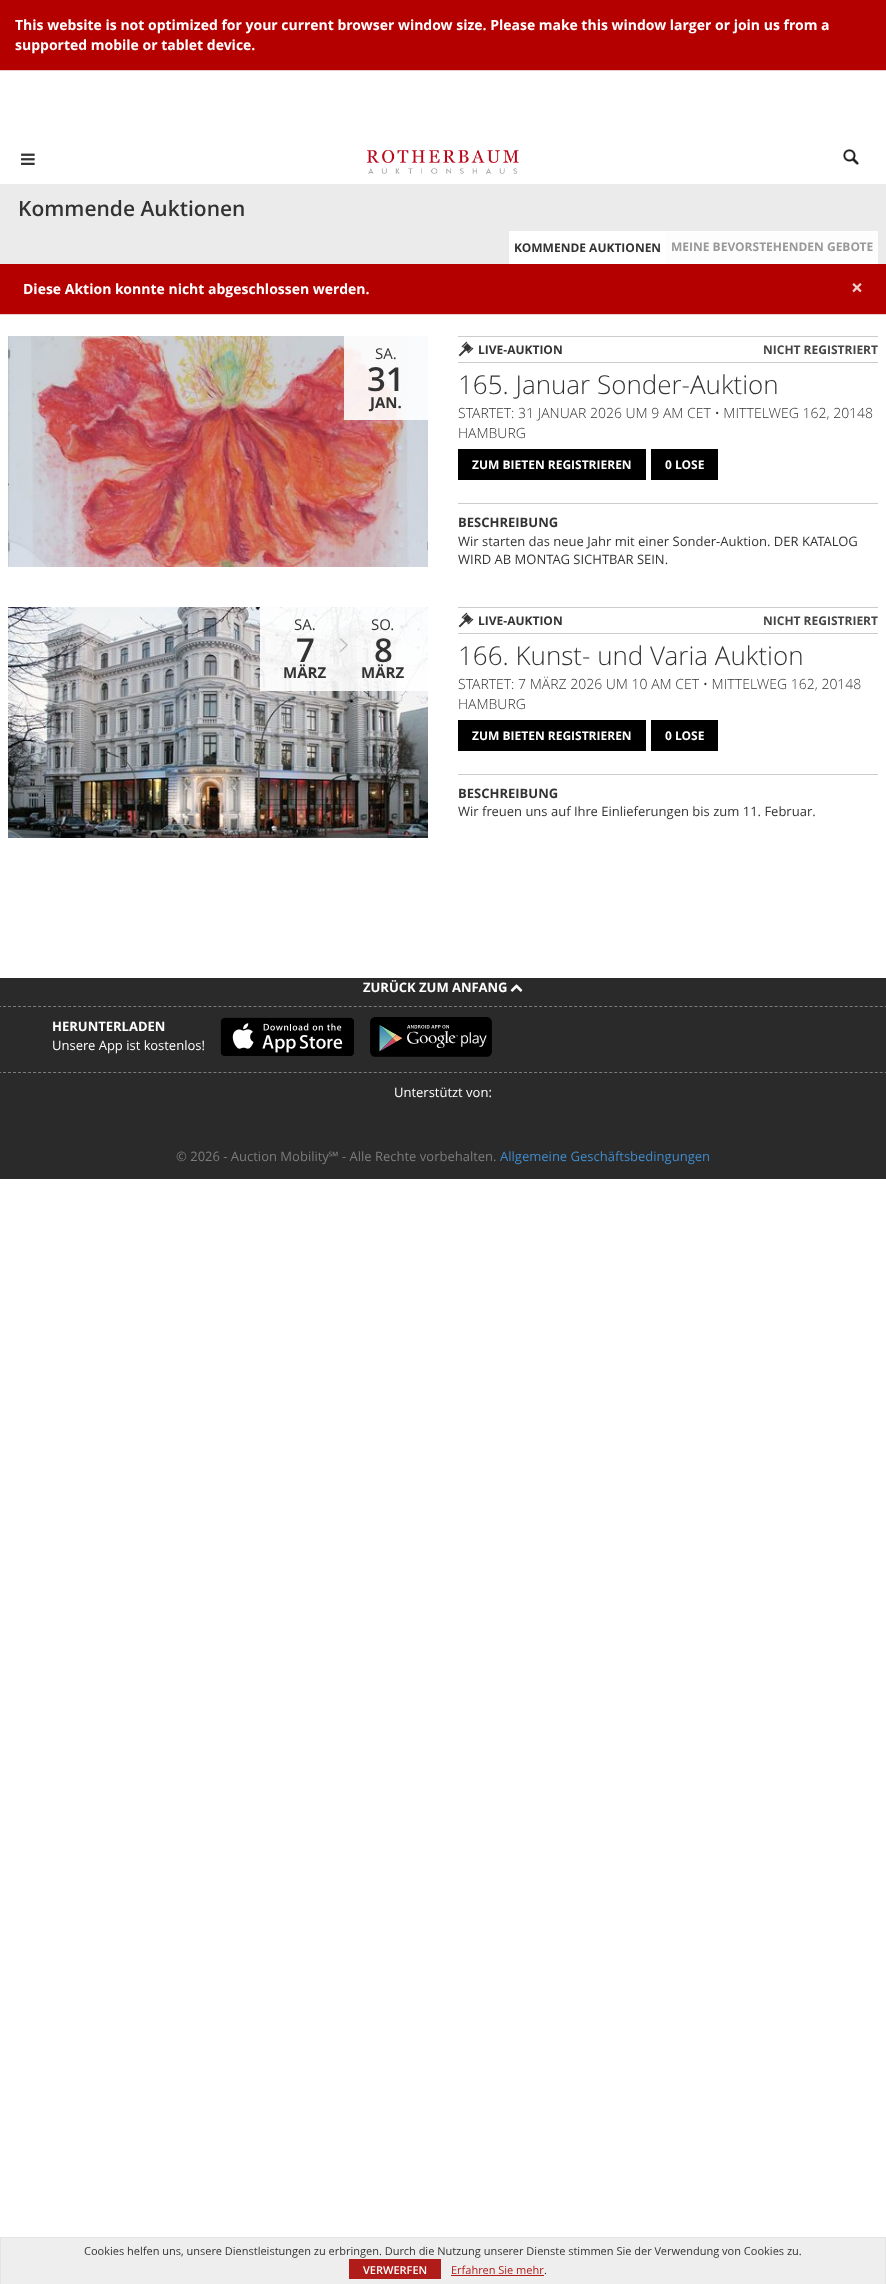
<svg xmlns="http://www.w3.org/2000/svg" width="886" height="2284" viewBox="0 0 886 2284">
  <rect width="100%" height="100%" fill="#ffffff"/>
  <rect x="0" y="0" width="886" height="70" fill="#b50000"/>
  <rect x="0" y="70" width="886" height="1" fill="#ebccd1"/>
  <text x="15" y="30" font-family="Open Sans" font-size="14" font-weight="bold" fill="#ffffff">This website is not optimized for your current browser window size. Please make this window larger or join us from a</text>
  <text x="15" y="50" font-family="Open Sans" font-size="14" font-weight="bold" fill="#ffffff">supported mobile or tablet device.</text>
  <image x="21" y="153" width="14" height="12" href="img1.png"/>
  <image x="366" y="150" width="153" height="24" href="img2.png"/>
  <image x="843" y="149" width="16" height="16" href="img3.png"/>
  <rect x="0" y="184" width="886" height="80" fill="#ebebeb"/>
  <text x="18" y="216" font-family="Open Sans" font-size="21" font-weight="600" fill="#333333">Kommende Auktionen</text>
  <rect x="509" y="231" width="157" height="33" fill="#ffffff"/>
  <text x="514" y="252" font-family="Open Sans" font-size="12" font-weight="bold" fill="#333333">KOMMENDE AUKTIONEN</text>
  <rect x="666" y="231" width="212" height="33" fill="#fdfdfd"/>
  <text x="671" y="251" font-family="Open Sans" font-size="12" font-weight="bold" fill="#999999">MEINE BEVORSTEHENDEN GEBOTE</text>
  <rect x="0" y="264" width="886" height="50" fill="#b50000"/>
  <rect x="0" y="314" width="886" height="1" fill="#ebccd1"/>
  <text x="23" y="294" font-family="Open Sans" font-size="14" font-weight="bold" fill="#ffffff">Diese Aktion konnte nicht abgeschlossen werden.</text>
  <text x="851" y="295" font-family="Open Sans" font-size="21" font-weight="bold" fill="#f0cccc">×</text>
  <image x="8" y="336" width="420" height="231" href="img4.png"/>
  <rect x="344" y="336" width="84" height="84" fill="#ffffff" fill-opacity="0.9"/>
  <text x="375" y="359" font-family="Open Sans" font-size="15" fill="#333333">SA.</text>
  <text x="367" y="391" font-family="Open Sans" font-size="33" font-weight="600" fill="#333333">31</text>
  <text x="370" y="408" font-family="Open Sans" font-size="15" font-weight="bold" fill="#333333">JAN.</text>
  <image x="458" y="341" width="16" height="16" href="img5.png"/>
  <rect x="458" y="336" width="420" height="1" fill="#cccccc"/>
  <text x="478" y="354" font-family="Open Sans" font-size="12" font-weight="bold" fill="#333333">LIVE-AUKTION</text>
  <text x="763" y="354" font-family="Open Sans" font-size="12" font-weight="bold" fill="#454545">NICHT REGISTRIERT</text>
  <rect x="458" y="362" width="420" height="1" fill="#cccccc"/>
  <rect x="458" y="503" width="420" height="1" fill="#cccccc"/>
  <text x="458" y="394" font-family="Open Sans" font-size="26" font-weight="300" fill="#333333">165. Januar Sonder-Auktion</text>
  <text x="458" y="418" font-family="Open Sans" font-size="14" font-weight="300" fill="#333333">STARTET: 31 JANUAR 2026 UM 9 AM CET • MITTELWEG 162, 20148</text>
  <text x="458" y="438" font-family="Open Sans" font-size="14" font-weight="300" fill="#333333">HAMBURG</text>
  <rect x="458" y="449" width="188" height="31" fill="#000000"/>
  <text x="472" y="469" font-family="Open Sans" font-size="12" font-weight="bold" fill="#ffffff">ZUM BIETEN REGISTRIEREN</text>
  <rect x="651" y="449" width="67" height="31" fill="#000000"/>
  <text x="665" y="469" font-family="Open Sans" font-size="12" font-weight="bold" fill="#ffffff">0 LOSE</text>
  <text x="458" y="527" font-family="Open Sans" font-size="13" font-weight="bold" fill="#333333">BESCHREIBUNG</text>
  <text x="458" y="546" font-family="Open Sans" font-size="13" fill="#333333">Wir starten das neue Jahr mit einer Sonder-Auktion. DER KATALOG</text>
  <text x="458" y="564" font-family="Open Sans" font-size="13" fill="#333333">WIRD AB MONTAG SICHTBAR SEIN.</text>
  <image x="8" y="607" width="420" height="231" href="img6.png"/>
  <rect x="260" y="607" width="168" height="84" fill="#ffffff" fill-opacity="0.9"/>
  <text x="294" y="630" font-family="Open Sans" font-size="15" fill="#333333">SA.</text>
  <text x="296" y="662" font-family="Open Sans" font-size="33" font-weight="600" fill="#333333">7</text>
  <text x="283" y="678" font-family="Open Sans" font-size="15" font-weight="bold" fill="#333333">MÄRZ</text>
  <text x="371" y="630" font-family="Open Sans" font-size="15" fill="#333333">SO.</text>
  <image x="340" y="638" width="8" height="14" href="img7.png"/>
  <text x="374" y="662" font-family="Open Sans" font-size="33" font-weight="600" fill="#333333">8</text>
  <text x="361" y="678" font-family="Open Sans" font-size="15" font-weight="bold" fill="#333333">MÄRZ</text>
  <image x="458" y="612" width="16" height="16" href="img5.png"/>
  <rect x="458" y="607" width="420" height="1" fill="#cccccc"/>
  <text x="478" y="625" font-family="Open Sans" font-size="12" font-weight="bold" fill="#333333">LIVE-AUKTION</text>
  <text x="763" y="625" font-family="Open Sans" font-size="12" font-weight="bold" fill="#454545">NICHT REGISTRIERT</text>
  <rect x="458" y="633" width="420" height="1" fill="#cccccc"/>
  <rect x="458" y="774" width="420" height="1" fill="#cccccc"/>
  <text x="458" y="665" font-family="Open Sans" font-size="26" font-weight="300" fill="#333333">166. Kunst- und Varia Auktion</text>
  <text x="458" y="689" font-family="Open Sans" font-size="14" font-weight="300" fill="#333333">STARTET: 7 MÄRZ 2026 UM 10 AM CET • MITTELWEG 162, 20148</text>
  <text x="458" y="709" font-family="Open Sans" font-size="14" font-weight="300" fill="#333333">HAMBURG</text>
  <rect x="458" y="720" width="188" height="31" fill="#000000"/>
  <text x="472" y="740" font-family="Open Sans" font-size="12" font-weight="bold" fill="#ffffff">ZUM BIETEN REGISTRIEREN</text>
  <rect x="651" y="720" width="67" height="31" fill="#000000"/>
  <text x="665" y="740" font-family="Open Sans" font-size="12" font-weight="bold" fill="#ffffff">0 LOSE</text>
  <text x="458" y="798" font-family="Open Sans" font-size="13" font-weight="bold" fill="#333333">BESCHREIBUNG</text>
  <text x="458" y="816" font-family="Open Sans" font-size="13" fill="#333333">Wir freuen uns auf Ihre Einlieferungen bis zum 11. Februar.</text>
  <rect x="0" y="978" width="886" height="201" fill="#2a2a2a"/>
  <path d="M-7 1006.5H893" fill="none" stroke="#7c7c7c" stroke-dasharray="3 2.01"/>
  <text x="363" y="992" font-family="Open Sans" font-size="13" font-weight="bold" fill="#ffffff">ZURÜCK ZUM ANFANG</text>
  <image x="510" y="984" width="13" height="8" href="img8.png"/>
  <path d="M-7 1072.5H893" fill="none" stroke="#7c7c7c" stroke-dasharray="3 2.01"/>
  <text x="52" y="1031" font-family="Open Sans" font-size="13" font-weight="bold" fill="#ffffff">HERUNTERLADEN</text>
  <text x="52" y="1050" font-family="Open Sans" font-size="13" fill="#ffffff">Unsere App ist kostenlos!</text>
  <image x="220" y="1017" width="134" height="39" href="img9.png"/>
  <image x="370" y="1017" width="122" height="40" href="img10.png"/>
  <text x="394" y="1097" font-family="Open Sans" font-size="13" fill="#ffffff">Unterstützt von:</text>
  <text x="176" y="1161" font-family="Open Sans" font-size="13" fill="#7c7c7c">© 2026 - Auction Mobility</text>
  <text x="328" y="1161" font-family="Noto Sans" font-size="13" fill="#7c7c7c">℠</text>
  <text x="342" y="1161" font-family="Open Sans" font-size="13" fill="#7c7c7c">- Alle Rechte vorbehalten.</text>
  <text x="500" y="1161" font-family="Open Sans" font-size="13" fill="#428bca">Allgemeine Geschäftsbedingungen</text>
  <rect x="1" y="2238" width="884" height="46" fill="#eeeeee"/>
  <rect x="0" y="2237" width="886" height="1" fill="#e4e4e4"/>
  <rect x="885" y="2237" width="1" height="47" fill="#e4e4e4"/>
  <rect x="0" y="2237" width="1" height="47" fill="#e4e4e4"/>
  <text x="84" y="2255" font-family="Open Sans" font-size="11" fill="#333333">Cookies helfen uns, unsere Dienstleistungen zu erbringen. Durch die Nutzung unserer Dienste stimmen Sie der Verwendung von Cookies zu.</text>
  <rect x="349" y="2259" width="92" height="20" fill="#af1c1a"/>
  <text x="363" y="2274" font-family="Open Sans" font-size="11" font-weight="600" fill="#ffffff">VERWERFEN</text>
  <text x="451" y="2274" font-family="Open Sans" font-size="11" fill="#af1c1a">Erfahren Sie mehr</text>
  <rect x="451" y="2275" width="93" height="1" fill="#af1c1a"/>
  <text x="544" y="2274" font-family="Open Sans" font-size="11" fill="#333333">.</text>
</svg>
